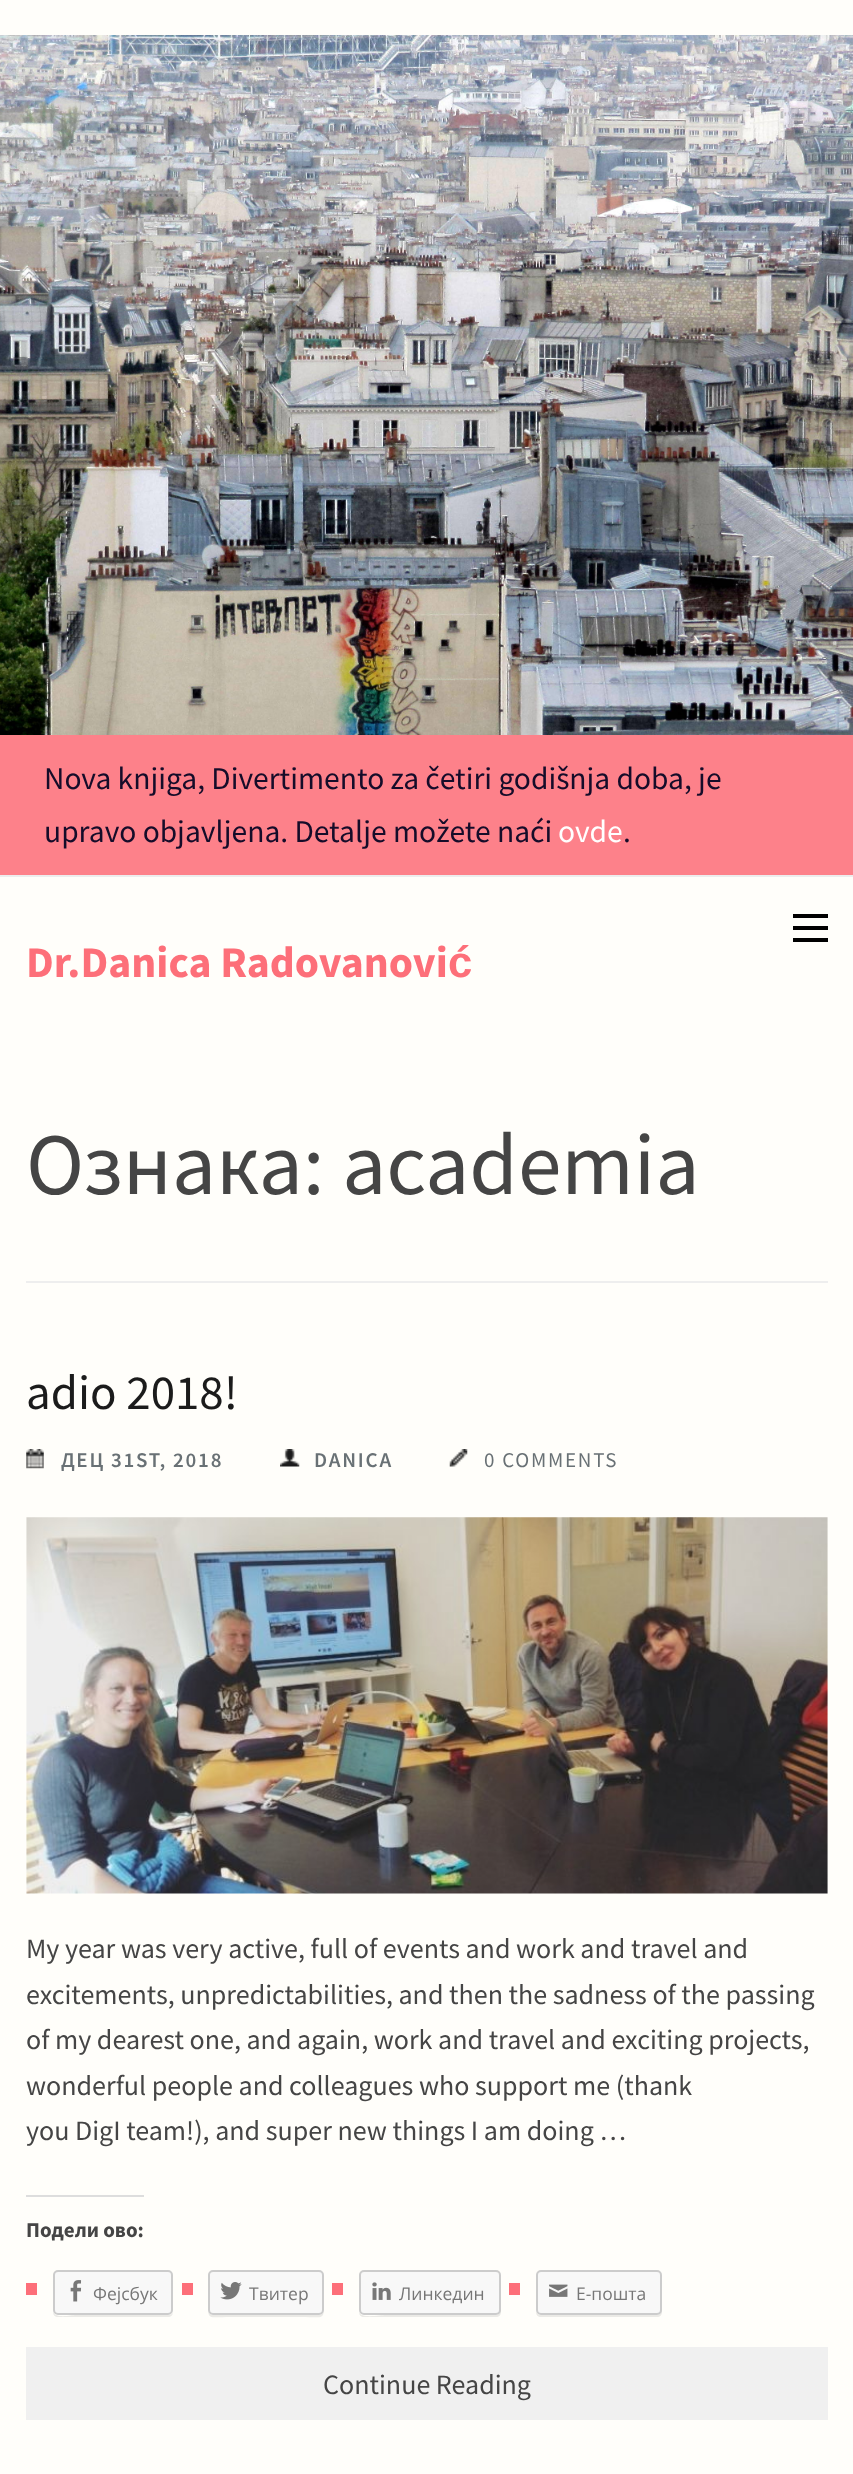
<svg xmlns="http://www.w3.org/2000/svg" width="853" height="2474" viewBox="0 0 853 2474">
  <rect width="100%" height="100%" fill="#fffefa"/>
  <image x="0" y="35" width="853" height="700" href="img1.png"/>
  <rect x="0" y="735" width="853" height="140" fill="#fd818a"/>
  <rect x="0" y="875" width="853" height="2" fill="#ededed"/>
  <text x="44" y="789" font-family="Source Sans Pro" font-size="31.5" fill="#150c29">Nova knjiga, Divertimento za četiri godišnja doba, je</text>
  <text x="44" y="842" font-family="Source Sans Pro" font-size="31.5" fill="#150c29">upravo objavljena. Detalje možete naći</text>
  <text x="558" y="842" font-family="Source Sans Pro" font-size="31.5" fill="#ffffff">ovde</text>
  <text x="623" y="842" font-family="Source Sans Pro" font-size="31.5" fill="#150c29">.</text>
  <rect x="793" y="914" width="35" height="4" fill="#000000"/>
  <rect x="793" y="926" width="35" height="4" fill="#000000"/>
  <rect x="793" y="938" width="35" height="4" fill="#000000"/>
  <text x="26" y="977" font-family="Source Sans Pro" font-size="43.75" font-weight="bold" fill="#fd6f79">Dr.Danica Radovanovi</text>
  <text x="448" y="977" font-family="Liberation Sans" font-size="43.75" font-weight="bold" fill="#fd6f79">ć</text>
  <rect x="26" y="1281" width="802" height="2" fill="#eeeeee"/>
  <text x="26" y="1194" font-family="Source Sans Pro" font-size="87.5" fill="#454545">Ознака: academia</text>
  <text x="26" y="1409" font-family="Source Sans Pro" font-size="49" fill="#1b1b1b">adio 2018!</text>
  <image x="26" y="1449" width="18" height="20" href="img2.png"/>
  <text x="61" y="1467" font-family="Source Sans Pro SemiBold" font-size="21" font-weight="600" letter-spacing="1.75" fill="#697175">ДЕЦ 31ST, 2018</text>
  <image x="280" y="1449" width="20" height="18" href="img3.png"/>
  <text x="314" y="1467" font-family="Source Sans Pro SemiBold" font-size="21" font-weight="600" letter-spacing="1.75" fill="#697175">DANICA</text>
  <image x="449" y="1449" width="19" height="18" href="img4.png"/>
  <text x="484" y="1467" font-family="Source Sans Pro" font-size="21" letter-spacing="1.75" fill="#697175">0 COMMENTS</text>
  <image x="26" y="1517" width="802" height="377" href="img5.png"/>
  <text x="26" y="1958" font-family="Source Sans Pro" font-size="28" fill="#454545">My year was very active, full of events and work and travel and</text>
  <text x="26" y="2004" font-family="Source Sans Pro" font-size="28" fill="#454545">excitements, unpredictabilities, and then the sadness of the passing</text>
  <text x="26" y="2049" font-family="Source Sans Pro" font-size="28" fill="#454545">of my dearest one, and again, work and travel and exciting projects,</text>
  <text x="26" y="2095" font-family="Source Sans Pro" font-size="28" fill="#454545">wonderful people and colleagues who support me (thank</text>
  <text x="26" y="2140" font-family="Source Sans Pro" font-size="28" fill="#454545">you DigI team!), and super new things I am doing …</text>
  <rect x="26" y="2195" width="118" height="2" fill="#dddddd"/>
  <text x="26" y="2237" font-family="Source Sans Pro" font-size="21" font-weight="bold" fill="#454545">Подели ово:</text>
  <rect x="26" y="2283" width="11" height="12" fill="#fd6f79"/>
  <path d="M53 2312C53 2315 55 2317 58 2317H168C171 2317 173 2315 173 2312L172 2314L169 2315H76C71 2315 56 2319 53 2312Z" fill="#ebeae6"/>
  <rect x="54" y="2271" width="118" height="43" rx="4" fill="#f8f8f8" stroke="#cccccc" stroke-width="2"/>
  <image x="70" y="2280" width="12" height="22" href="img6.png"/>
  <text x="93" y="2300" font-family="Open Sans" font-size="17.5" fill="#777777">Фејсбук</text>
  <rect x="182" y="2283" width="11" height="12" fill="#fd6f79"/>
  <path d="M208 2275V2300C208 2321 207 2317 231 2317H301C325 2317 324 2321 324 2300V2275V2310C324 2313 321 2315 318 2315H214C211 2315 208 2313 208 2310Z" fill="#ebeae6"/>
  <rect x="209" y="2271" width="114" height="43" rx="4" fill="#f8f8f8" stroke="#cccccc" stroke-width="2"/>
  <image x="220" y="2282" width="22" height="18" href="img7.png"/>
  <text x="249" y="2300" font-family="Open Sans" font-size="17.5" fill="#777777">Твитер</text>
  <rect x="332" y="2283" width="11" height="12" fill="#fd6f79"/>
  <path d="M359 2312C359 2315 361 2317 364 2317H496C499 2317 501 2315 501 2312V2277L500 2275V2304C500 2308 501 2315 495 2315H386C380 2315 361 2319 359 2312Z" fill="#ebeae6"/>
  <rect x="360" y="2271" width="140" height="43" rx="4" fill="#f8f8f8" stroke="#cccccc" stroke-width="2"/>
  <image x="372" y="2282" width="19" height="18" href="img8.png"/>
  <text x="399" y="2300" font-family="Open Sans" font-size="17.5" fill="#777777">Линкедин</text>
  <rect x="509" y="2283" width="11" height="12" fill="#fd6f79"/>
  <path d="M536 2312C536 2315 538 2317 541 2317H657C660 2317 662 2315 662 2312V2277L661 2275L662 2304C662 2308 662 2315 656 2315H541C539 2315 537 2314 536 2312Z" fill="#ebeae6"/>
  <rect x="537" y="2271" width="124" height="43" rx="4" fill="#f8f8f8" stroke="#cccccc" stroke-width="2"/>
  <image x="549" y="2284" width="19" height="13" href="img9.png"/>
  <text x="576" y="2300" font-family="Open Sans" font-size="17.5" fill="#777777">Е-пошта</text>
  <rect x="26" y="2347" width="802" height="73" fill="#f0f0f0"/>
  <text x="323" y="2394" font-family="Source Sans Pro" font-size="28" fill="#454545">Continue Reading</text>
</svg>
